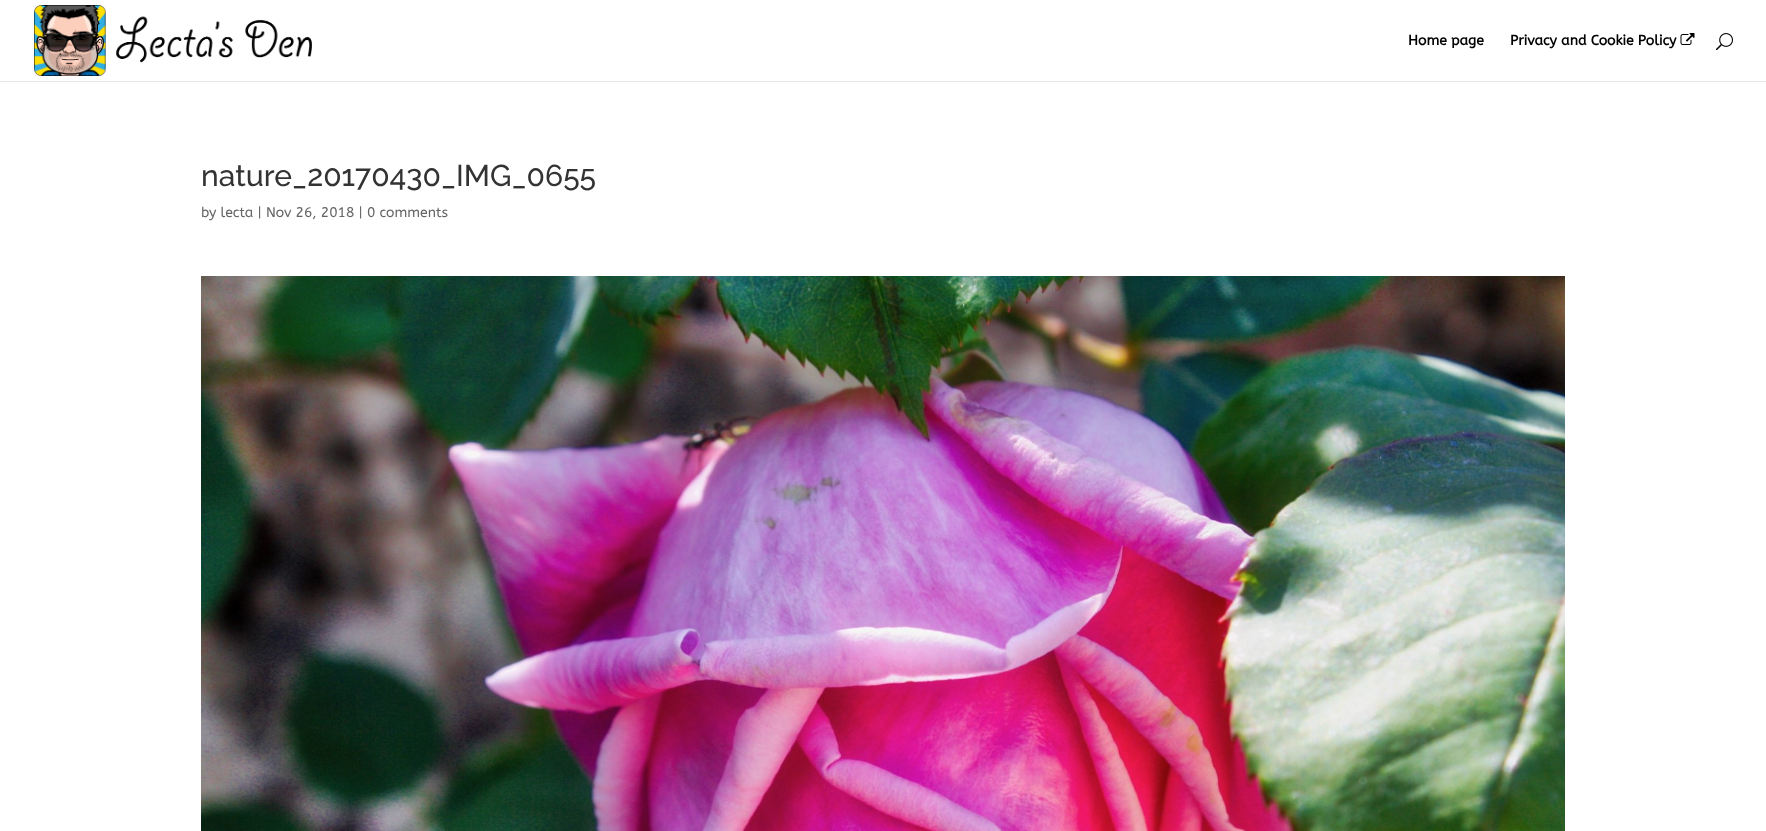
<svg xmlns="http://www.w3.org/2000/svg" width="1766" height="831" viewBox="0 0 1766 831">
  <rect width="100%" height="100%" fill="#ffffff"/>
  <rect x="0" y="81" width="1766" height="1" fill="#e6e6e6"/>
  <image x="34" y="5" width="278" height="71" href="img1.png"/>
  <text x="1408" y="45" font-family="ABeeZee" font-size="14" font-weight="bold" fill="#000000">Home page</text>
  <text x="1510" y="45" font-family="ABeeZee" font-size="14" font-weight="bold" fill="#000000">Privacy and Cookie Policy</text>
  <image x="1680" y="33" width="15" height="12" href="img2.png"/>
  <image x="1716" y="33" width="17" height="18" href="img3.png"/>
  <text x="201" y="186" font-family="Raleway" font-size="30" font-weight="100" fill="#333333">nature_20170430_IMG_0655</text>
  <text x="201" y="217" font-family="ABeeZee" font-size="14" fill="#666666">by lecta | Nov 26, 2018 | 0 comments</text>
  <image x="201" y="276" width="1364" height="555" href="img4.png"/>
</svg>
